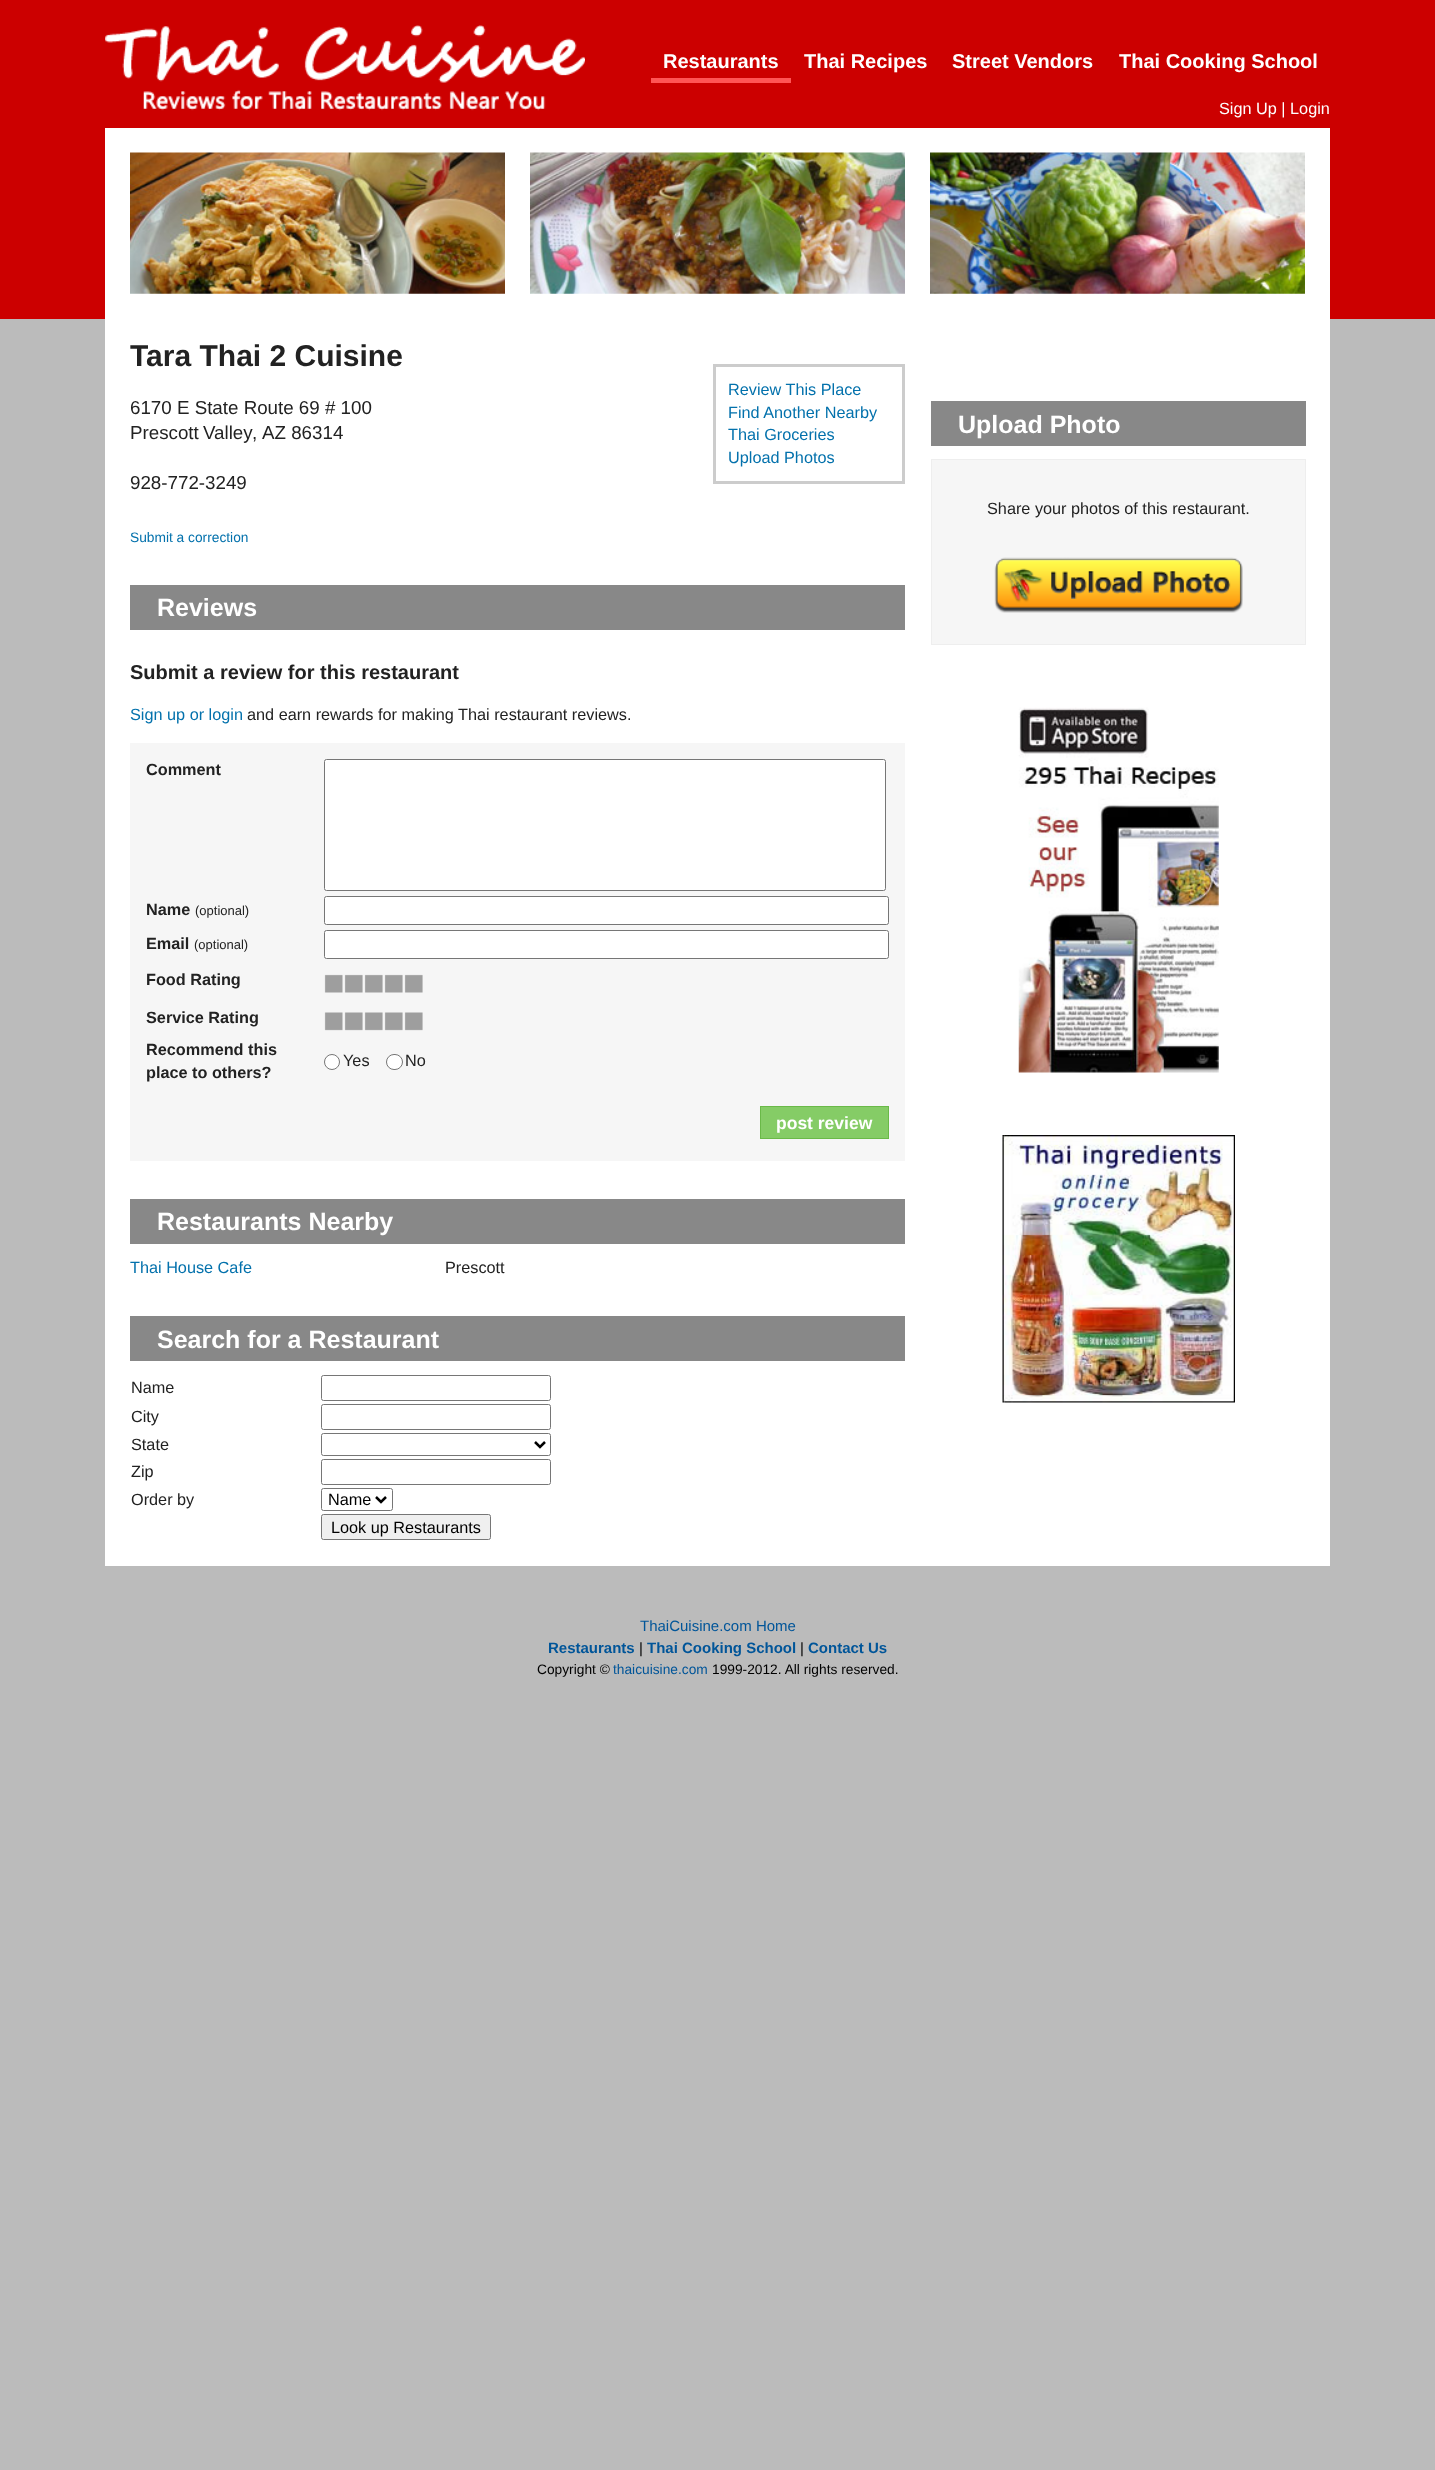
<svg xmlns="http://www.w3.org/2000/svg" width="1435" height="2470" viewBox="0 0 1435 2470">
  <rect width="100%" height="100%" fill="#bbbbbb"/>
  <rect x="0" y="0" width="1435" height="319" fill="#cc0000"/>
  <rect x="105" y="128" width="1225" height="1438" fill="#ffffff"/>
  <image x="105" y="25" width="480" height="86" href="img1.png"/>
  <rect x="651" y="78" width="140" height="5" fill="#ff5555"/>
  <text x="663" y="68" font-family="Liberation Sans" font-size="20" font-weight="bold" fill="#ffffff">Restaurants</text>
  <text x="804" y="68" font-family="Liberation Sans" font-size="20" font-weight="bold" fill="#ffffff">Thai Recipes</text>
  <text x="952" y="68" font-family="Liberation Sans" font-size="20" font-weight="bold" fill="#ffffff">Street Vendors</text>
  <text x="1119" y="68" font-family="Liberation Sans" font-size="20" font-weight="bold" fill="#ffffff">Thai Cooking School</text>
  <text x="1219" y="114" font-family="Liberation Sans" font-size="16.25" fill="#ffffff">Sign Up | Login</text>
  <image x="130" y="152" width="375" height="142" href="img2.png"/>
  <image x="530" y="152" width="375" height="142" href="img3.png"/>
  <image x="930" y="152" width="375" height="142" href="img4.png"/>
  <text x="130" y="366" font-family="Liberation Sans" font-size="30" font-weight="bold" fill="#222222">Tara Thai 2 Cuisine</text>
  <text x="130" y="414" font-family="Liberation Sans" font-size="18.75" fill="#222222">6170 E State Route 69 # 100</text>
  <text x="130" y="439" word-spacing="-1" font-family="Liberation Sans" font-size="18.75" fill="#222222">Prescott Valley</text>
  <text x="252" y="439" font-family="Liberation Sans" font-size="18.75" fill="#222222">,</text>
  <text x="262" y="439" font-family="Liberation Sans" font-size="18.75" fill="#222222">AZ 86314</text>
  <text x="130" y="489" font-family="Liberation Sans" font-size="18.75" fill="#222222">928-772-3249</text>
  <rect x="714.5" y="365.5" width="189" height="117" fill="none" stroke="#cccccc" stroke-width="3"/>
  <text x="728" y="395" font-family="Liberation Sans" font-size="16.25" fill="#0371ac">Review This Place</text>
  <text x="728" y="418" font-family="Liberation Sans" font-size="16.25" fill="#0371ac">Find Another Nearby</text>
  <text x="728" y="440" font-family="Liberation Sans" font-size="16.25" fill="#0371ac">Thai Groceries</text>
  <text x="728" y="463" font-family="Liberation Sans" font-size="16.25" fill="#0371ac">Upload Photos</text>
  <text x="130" y="542" font-family="Liberation Sans" font-size="13.75" fill="#0371ac">Submit a correction</text>
  <rect x="130" y="585" width="775" height="45" fill="#888888"/>
  <text x="157" y="616" font-family="Liberation Sans" font-size="25" font-weight="bold" fill="#ffffff">Reviews</text>
  <text x="130" y="679" font-family="Liberation Sans" font-size="20" font-weight="bold" fill="#222222">Submit a review for this restaurant</text>
  <text x="130" y="720" font-family="Liberation Sans" font-size="16.25" fill="#0371ac">Sign up or login</text>
  <text x="247" y="720" font-family="Liberation Sans" font-size="16.25" fill="#222222">and earn rewards for making Thai restaurant reviews.</text>
  <rect x="130" y="743" width="775" height="418" fill="#f6f6f6"/>
  <text x="146" y="775" font-family="Liberation Sans" font-size="16.25" font-weight="bold" fill="#222222">Comment</text>
  <rect x="324.5" y="759.5" width="561" height="131" rx="2" fill="#ffffff" stroke="#767676"/>
  <text x="146" y="915" font-family="Liberation Sans" font-size="16.25" font-weight="bold" fill="#222222">Name</text>
  <text x="195" y="915" font-family="Liberation Sans" font-size="13" fill="#222222">(optional)</text>
  <rect x="324.5" y="896.5" width="564" height="28" rx="2" fill="#ffffff" stroke="#767676"/>
  <text x="146" y="949" font-family="Liberation Sans" font-size="16.25" font-weight="bold" fill="#222222">Email</text>
  <text x="194" y="949" font-family="Liberation Sans" font-size="13" fill="#222222">(optional)</text>
  <rect x="324.5" y="930.5" width="564" height="28" rx="2" fill="#ffffff" stroke="#767676"/>
  <text x="146" y="985" font-family="Liberation Sans" font-size="16.25" font-weight="bold" fill="#222222">Food Rating</text>
  <image x="324" y="974" width="19" height="19" href="img5.png"/>
  <image x="344" y="974" width="19" height="19" href="img6.png"/>
  <image x="364" y="974" width="19" height="19" href="img6.png"/>
  <image x="384" y="974" width="19" height="19" href="img6.png"/>
  <image x="404" y="974" width="19" height="19" href="img6.png"/>
  <text x="146" y="1023" font-family="Liberation Sans" font-size="16.25" font-weight="bold" fill="#222222">Service Rating</text>
  <image x="324" y="1012" width="19" height="19" href="img7.png"/>
  <image x="344" y="1012" width="19" height="19" href="img8.png"/>
  <image x="364" y="1012" width="19" height="19" href="img8.png"/>
  <image x="384" y="1012" width="19" height="19" href="img8.png"/>
  <image x="404" y="1012" width="19" height="19" href="img8.png"/>
  <text x="146" y="1055" font-family="Liberation Sans" font-size="16.25" font-weight="bold" fill="#222222">Recommend this</text>
  <text x="146" y="1078" font-family="Liberation Sans" font-size="16.25" font-weight="bold" fill="#222222">place to others?</text>
  <circle cx="332" cy="1062" r="7.5" fill="#ffffff" stroke="#767676"/>
  <text x="343" y="1066" font-family="Liberation Sans" font-size="16.25" fill="#222222">Yes</text>
  <rect x="386.5" y="1054.5" width="16" height="15" rx="7.5" fill="#ffffff" stroke="#767676"/>
  <text x="405" y="1066" font-family="Liberation Sans" font-size="16.25" fill="#222222">No</text>
  <rect x="760.5" y="1106.5" width="128" height="32" fill="#85cc66" stroke="#6ab948"/>
  <text x="776" y="1129" font-family="Liberation Sans" font-size="17.5" font-weight="bold" fill="#ffffff">post review</text>
  <rect x="130" y="1199" width="775" height="45" fill="#888888"/>
  <text x="157" y="1230" font-family="Liberation Sans" font-size="25" font-weight="bold" fill="#ffffff">Restaurants Nearby</text>
  <text x="130" y="1273" font-family="Liberation Sans" font-size="16.25" fill="#0371ac">Thai House Cafe</text>
  <text x="445" y="1273" font-family="Liberation Sans" font-size="16.25" fill="#222222">Prescott</text>
  <rect x="130" y="1316" width="775" height="45" fill="#888888"/>
  <text x="157" y="1348" font-family="Liberation Sans" font-size="25" font-weight="bold" fill="#ffffff">Search for a Restaurant</text>
  <text x="131" y="1393" font-family="Liberation Sans" font-size="16.25" fill="#222222">Name</text>
  <rect x="321.5" y="1375.5" width="229" height="25" rx="2" fill="none" stroke="#767676"/>
  <text x="131" y="1422" font-family="Liberation Sans" font-size="16.25" fill="#222222">City</text>
  <rect x="321.5" y="1404.5" width="229" height="25" rx="2" fill="none" stroke="#767676"/>
  <text x="131" y="1450" font-family="Liberation Sans" font-size="16.25" fill="#222222">State</text>
  <rect x="321.5" y="1433.5" width="229" height="22" rx="2" fill="none" stroke="#767676"/>
  <path d="M535 1442L540 1447L545 1442" fill="none" stroke="#000000" stroke-width="2.5"/>
  <text x="131" y="1477" font-family="Liberation Sans" font-size="16.25" fill="#222222">Zip</text>
  <rect x="321.5" y="1459.5" width="229" height="25" rx="2" fill="none" stroke="#767676"/>
  <text x="131" y="1505" font-family="Liberation Sans" font-size="16.25" fill="#222222">Order by</text>
  <rect x="321.5" y="1488.5" width="71" height="22" rx="2" fill="none" stroke="#767676"/>
  <path d="M376 1497L381 1502L386 1497" fill="none" stroke="#000000" stroke-width="2.5"/>
  <text x="328" y="1505" font-family="Liberation Sans" font-size="16.25" fill="#000000">Name</text>
  <rect x="321.5" y="1514.5" width="169" height="25" rx="2" fill="#efefef" stroke="#767676"/>
  <text x="331" y="1533" font-family="Liberation Sans" font-size="16.25" fill="#000000">Look up Restaurants</text>
  <rect x="931" y="401" width="375" height="45" fill="#888888"/>
  <text x="958" y="433" font-family="Liberation Sans" font-size="25" font-weight="bold" fill="#ffffff">Upload Photo</text>
  <rect x="931.5" y="459.5" width="374" height="185" fill="#f6f6f6" stroke="#eeeeee"/>
  <text x="987" y="514" font-family="Liberation Sans" font-size="16.25" fill="#222222">Share your photos of this restaurant.</text>
  <image x="994" y="557" width="249" height="56" href="img9.png"/>
  <image x="1018" y="707" width="201" height="366" href="img10.png"/>
  <image x="1002" y="1135" width="233" height="268" href="img11.png"/>
  <text x="640" y="1631" font-family="Liberation Sans" font-size="15" fill="#005599">ThaiCuisine.com Home</text>
  <text x="548" y="1653" font-family="Liberation Sans" font-size="15" font-weight="bold" fill="#005599">Restaurants</text>
  <text x="639" y="1653" font-family="Liberation Sans" font-size="15" fill="#000000">|</text>
  <text x="647" y="1653" font-family="Liberation Sans" font-size="15" font-weight="bold" fill="#005599">Thai Cooking School</text>
  <text x="800" y="1653" font-family="Liberation Sans" font-size="15" fill="#000000">|</text>
  <text x="808" y="1653" font-family="Liberation Sans" font-size="15" font-weight="bold" fill="#005599">Contact Us</text>
  <text x="537" y="1674" font-family="Liberation Sans" font-size="13.75" fill="#000000">Copyright ©</text>
  <text x="613" y="1674" font-family="Liberation Sans" font-size="13.75" fill="#005599">thaicuisine.com</text>
  <text x="712" y="1674" font-family="Liberation Sans" font-size="13.75" fill="#000000">1999-2012. All rights reserved.</text>
</svg>
